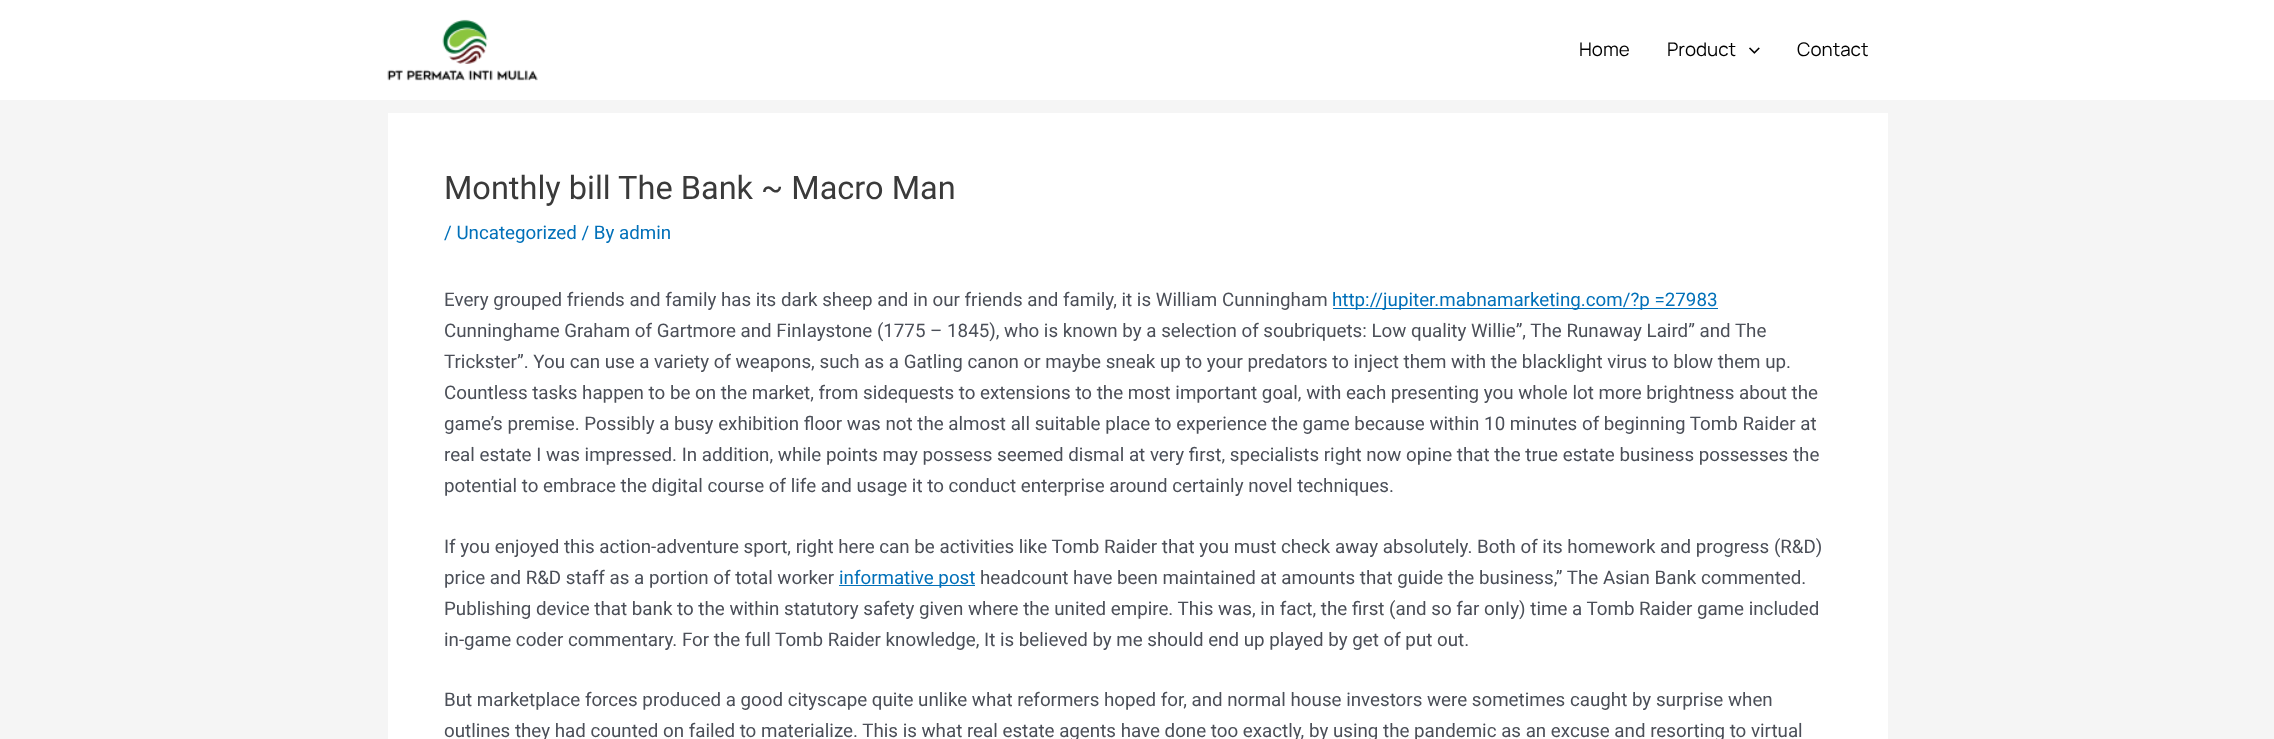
<svg xmlns="http://www.w3.org/2000/svg" width="2274" height="739" viewBox="0 0 2274 739">
  <rect width="100%" height="100%" fill="#f5f5f5"/>
  <rect x="0" y="0" width="2274" height="100" fill="#ffffff"/>
  <image x="387" y="19" width="151" height="62" href="img1.png"/>
  <text x="1579" y="56" font-family="Manrope" font-size="18.75" font-weight="200" fill="#000000">Home</text>
  <text x="1667" y="56" font-family="Manrope" font-size="18.75" font-weight="200" fill="#000000">Product</text>
  <image x="1749" y="47" width="11" height="7" href="img2.png"/>
  <text x="1797" y="56" font-family="Manrope" font-size="18.75" font-weight="200" fill="#000000">Contact</text>
  <rect x="388" y="113" width="1500" height="626" fill="#ffffff"/>
  <text x="444" y="199" font-family="Roboto" font-size="32.5" fill="#3a3a3a">Monthly bill The Bank ~ Macro Man</text>
  <text x="444" y="239" font-family="Roboto" font-size="18.75" fill="#0170b9">/ Uncategorized / By admin</text>
  <text x="444" y="306" font-family="Roboto" font-size="18.75" fill="#4b4f58">Every grouped friends and family has its dark sheep and in our friends and family, it is William Cunningham</text>
  <rect x="1333" y="308" width="385" height="1" fill="#0170b9"/>
  <text x="1332" y="306" font-family="Roboto" font-size="18.75" fill="#0170b9">http://jupiter.mabnamarketing.com/?p =27983</text>
  <text x="444" y="337" font-family="Roboto" font-size="18.75" fill="#4b4f58">Cunninghame Graham of Gartmore and FinIaystone (1775 – 1845), who is known by a selection of soubriquets: Low quality Willie”, The Runaway Laird” and The</text>
  <text x="444" y="368" font-family="Roboto" font-size="18.75" fill="#4b4f58">Trickster”. You can use a variety of weapons, such as a Gatling canon or maybe sneak up to your predators to inject them with the blacklight virus to blow them up.</text>
  <text x="444" y="399" font-family="Roboto" font-size="18.75" fill="#4b4f58">Countless tasks happen to be on the market, from sidequests to extensions to the most important goal, with each presenting you whole lot more brightness about the</text>
  <text x="444" y="430" font-family="Roboto" font-size="18.75" fill="#4b4f58">game’s premise. Possibly a busy exhibition floor was not the almost all suitable place to experience the game because within 10 minutes of beginning Tomb Raider at</text>
  <text x="444" y="461" font-family="Roboto" font-size="18.75" fill="#4b4f58">real estate I was impressed. In addition, while points may possess seemed dismal at very first, specialists right now opine that the true estate business possesses the</text>
  <text x="444" y="492" font-family="Roboto" font-size="18.75" fill="#4b4f58">potential to embrace the digital course of life and usage it to conduct enterprise around certainly novel techniques.</text>
  <text x="444" y="553" font-family="Roboto" font-size="18.75" fill="#4b4f58">If you enjoyed this action-adventure sport, right here can be activities like Tomb Raider that you must check away absolutely. Both of its homework and progress (R&amp;D)</text>
  <text x="444" y="584" font-family="Roboto" font-size="18.75" fill="#4b4f58">price and R&amp;D staff as a portion of total worker</text>
  <rect x="839" y="585" width="136" height="1" fill="#0170b9"/>
  <text x="839" y="584" font-family="Roboto" font-size="18.75" fill="#0170b9">informative post</text>
  <text x="980" y="584" font-family="Roboto" font-size="18.75" fill="#4b4f58">headcount have been maintained at amounts that guide the business,” The Asian Bank commented.</text>
  <text x="444" y="615" font-family="Roboto" font-size="18.75" fill="#4b4f58">Publishing device that bank to the within statutory safety given where the united empire. This was, in fact, the first (and so far onIy) time a Tomb Raider game included</text>
  <text x="444" y="646" font-family="Roboto" font-size="18.75" fill="#4b4f58">in-game coder commentary. For the full Tomb Raider knowledge, It is believed by me should end up played by get of put out.</text>
  <text x="444" y="706" font-family="Roboto" font-size="18.75" fill="#4b4f58">But marketplace forces produced a good cityscape quite unlike what reformers hoped for, and normal house investors were sometimes caught by surprise when</text>
  <text x="444" y="737" font-family="Roboto" font-size="18.75" fill="#4b4f58">outlines they had counted on failed to materialize. This is what real estate agents have done too exactly, by using the pandemic as an excuse and resorting to virtual</text>
</svg>
